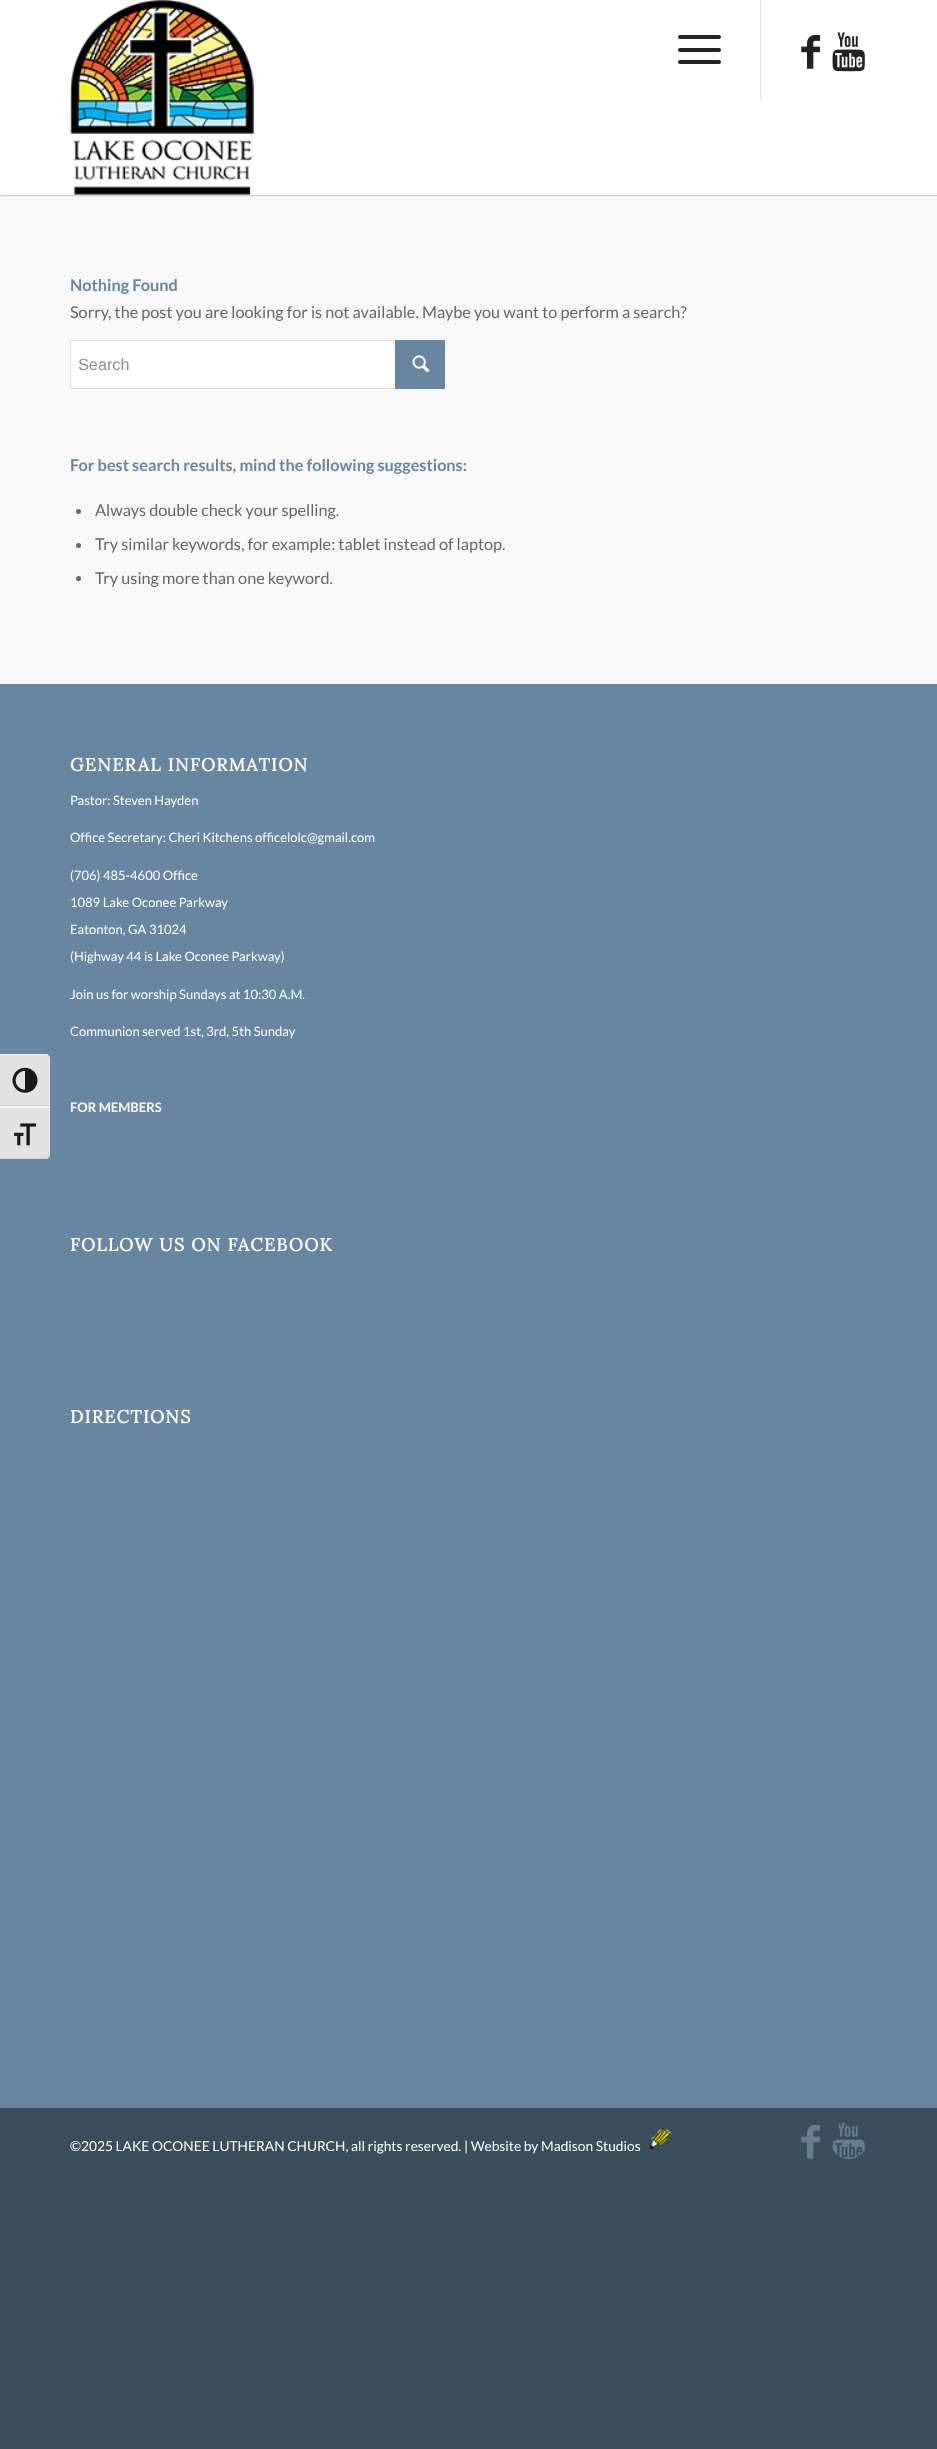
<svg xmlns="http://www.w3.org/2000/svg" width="937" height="2449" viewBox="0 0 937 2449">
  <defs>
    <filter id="blur1" x="-50%" y="-200%" width="200%" height="500%"><feGaussianBlur stdDeviation="1"/></filter>
  </defs>
  <rect width="100%" height="100%" fill="#3a4d5c"/>
  <rect x="0" y="684" width="937" height="1424" fill="#6786a1"/>
  <path d="M0 1054H45C48 1054 50 1056 50 1059V1106H0Z" fill="#e2e2e2"/>
  <path d="M0 1055H45C48 1055 50 1057 50 1059C50 1056 48 1054 45 1054H0Z" fill="#f5f5f5"/>
  <rect x="0" y="1105" width="50" height="1" fill="#d2d2d2"/>
  <image x="12" y="1067" width="26" height="26" href="img1.png"/>
  <path d="M0 1106H50V1154C50 1157 48 1159 45 1159H0Z" fill="#e2e2e2"/>
  <rect x="0" y="1106" width="50" height="2" fill="#f5f5f5"/>
  <path d="M47 1159C49 1158 50 1156 50 1154C50 1156 48 1158 45 1158H0V1159Z" fill="#d2d2d2"/>
  <image x="14" y="1123" width="22" height="23" href="img2.png"/>
  <rect x="0" y="196" width="937" height="488" fill="#f8f8f8"/>
  <rect x="0" y="195" width="937" height="1" fill="#e1e1e1"/>
  <rect x="-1" y="-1" width="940" height="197" fill="#000000" fill-opacity="0.1" filter="url(#blur1)"/>
  <rect x="0" y="0" width="937" height="195" fill="#ffffff"/>
  <image x="70" y="0" width="184" height="195" href="img3.png"/>
  <rect x="760" y="0" width="1" height="100" fill="#e1e1e1"/>
  <rect x="678" y="48" width="43" height="4" rx="2" fill="#222222"/>
  <rect x="678" y="35" width="43" height="4" rx="2" fill="#222222"/>
  <rect x="678" y="60" width="43" height="4" rx="2" fill="#222222"/>
  <image x="801" y="35" width="19" height="34" href="img4.png"/>
  <image x="832" y="32" width="33" height="40" href="img5.png"/>
  <text x="70" y="291" font-family="Lato" font-size="16.25" font-weight="bold" fill="#6786a1">Nothing Found</text>
  <text x="70" y="318" font-family="Lato" font-size="16.25" fill="#666666">Sorry, the post you are looking for is not available. Maybe you want to perform a search?</text>
  <rect x="71" y="341" width="324" height="47" fill="#ffffff"/>
  <rect x="70.5" y="340.5" width="374" height="48" fill="none" stroke="#e1e1e1"/>
  <text x="78" y="370" font-family="Liberation Sans" font-size="16.25" fill="#8d8d8d">Search</text>
  <rect x="395" y="340" width="50" height="49" fill="#6786a1"/>
  <image x="412" y="355" width="18" height="18" href="img6.png"/>
  <text x="70" y="471" font-family="Lato" font-size="16.25" font-weight="bold" fill="#6786a1">For best search results, mind the following suggestions:</text>
  <circle cx="78.5" cy="511.5" r="2.5" fill="#666666"/>
  <text x="95" y="516" font-family="Lato" font-size="16.25" fill="#666666">Always double check your spelling.</text>
  <circle cx="78.5" cy="545.5" r="2.5" fill="#666666"/>
  <text x="95" y="550" font-family="Lato" font-size="16.25" fill="#666666">Try similar keywords, for example: tablet instead of laptop.</text>
  <circle cx="78.5" cy="578.5" r="2.5" fill="#666666"/>
  <text x="95" y="584" font-family="Lato" font-size="16.25" fill="#666666">Try using more than one keyword.</text>
  <text x="70" y="771" font-family="Lora" font-size="17.9" font-weight="bold" letter-spacing="1.25" fill="#ffffff">GENERAL INFORMATION</text>
  <text x="70" y="805" font-family="Lato" font-size="13" fill="#ffffff">Pastor: Steven Hayden</text>
  <text x="70" y="842" font-family="Lato" font-size="13" fill="#ffffff">Office Secretary: Cheri Kitchens officelolc@gmail.com</text>
  <text x="70" y="880" font-family="Lato" font-size="13" fill="#ffffff">(706) 485-4600 Office</text>
  <text x="70" y="907" font-family="Lato" font-size="13" fill="#ffffff">1089 Lake Oconee Parkway</text>
  <text x="70" y="934" font-family="Lato" font-size="13" fill="#ffffff">Eatonton, GA 31024</text>
  <text x="70" y="961" font-family="Lato" font-size="13" fill="#ffffff">(Highway 44 is Lake Oconee Parkway)</text>
  <text x="70" y="999" font-family="Lato" font-size="13" fill="#ffffff">Join us for worship Sundays at 10:30 A.M.</text>
  <text x="70" y="1036" font-family="Lato" font-size="13" fill="#ffffff">Communion served 1st, 3rd, 5th Sunday</text>
  <text x="70" y="1112" font-family="Lato" font-size="13" font-weight="bold" fill="#ffffff">FOR MEMBERS</text>
  <text x="70" y="1251" font-family="Lora" font-size="17.9" font-weight="bold" letter-spacing="1.25" fill="#ffffff">FOLLOW US ON FACEBOOK</text>
  <text x="70" y="1423" font-family="Lora" font-size="17.9" font-weight="bold" letter-spacing="1.25" fill="#ffffff">DIRECTIONS</text>
  <text x="70" y="2151" font-family="Lato" font-size="13.75" fill="#ffffff">©2025 LAKE OCONEE LUTHERAN CHURCH, all rights reserved. | Website by Madison Studios</text>
  <image x="649" y="2127" width="23" height="23" href="img7.png"/>
  <image x="801" y="2125" width="19" height="34" href="img8.png"/>
  <image x="832" y="2122" width="33" height="37" href="img9.png"/>
</svg>
